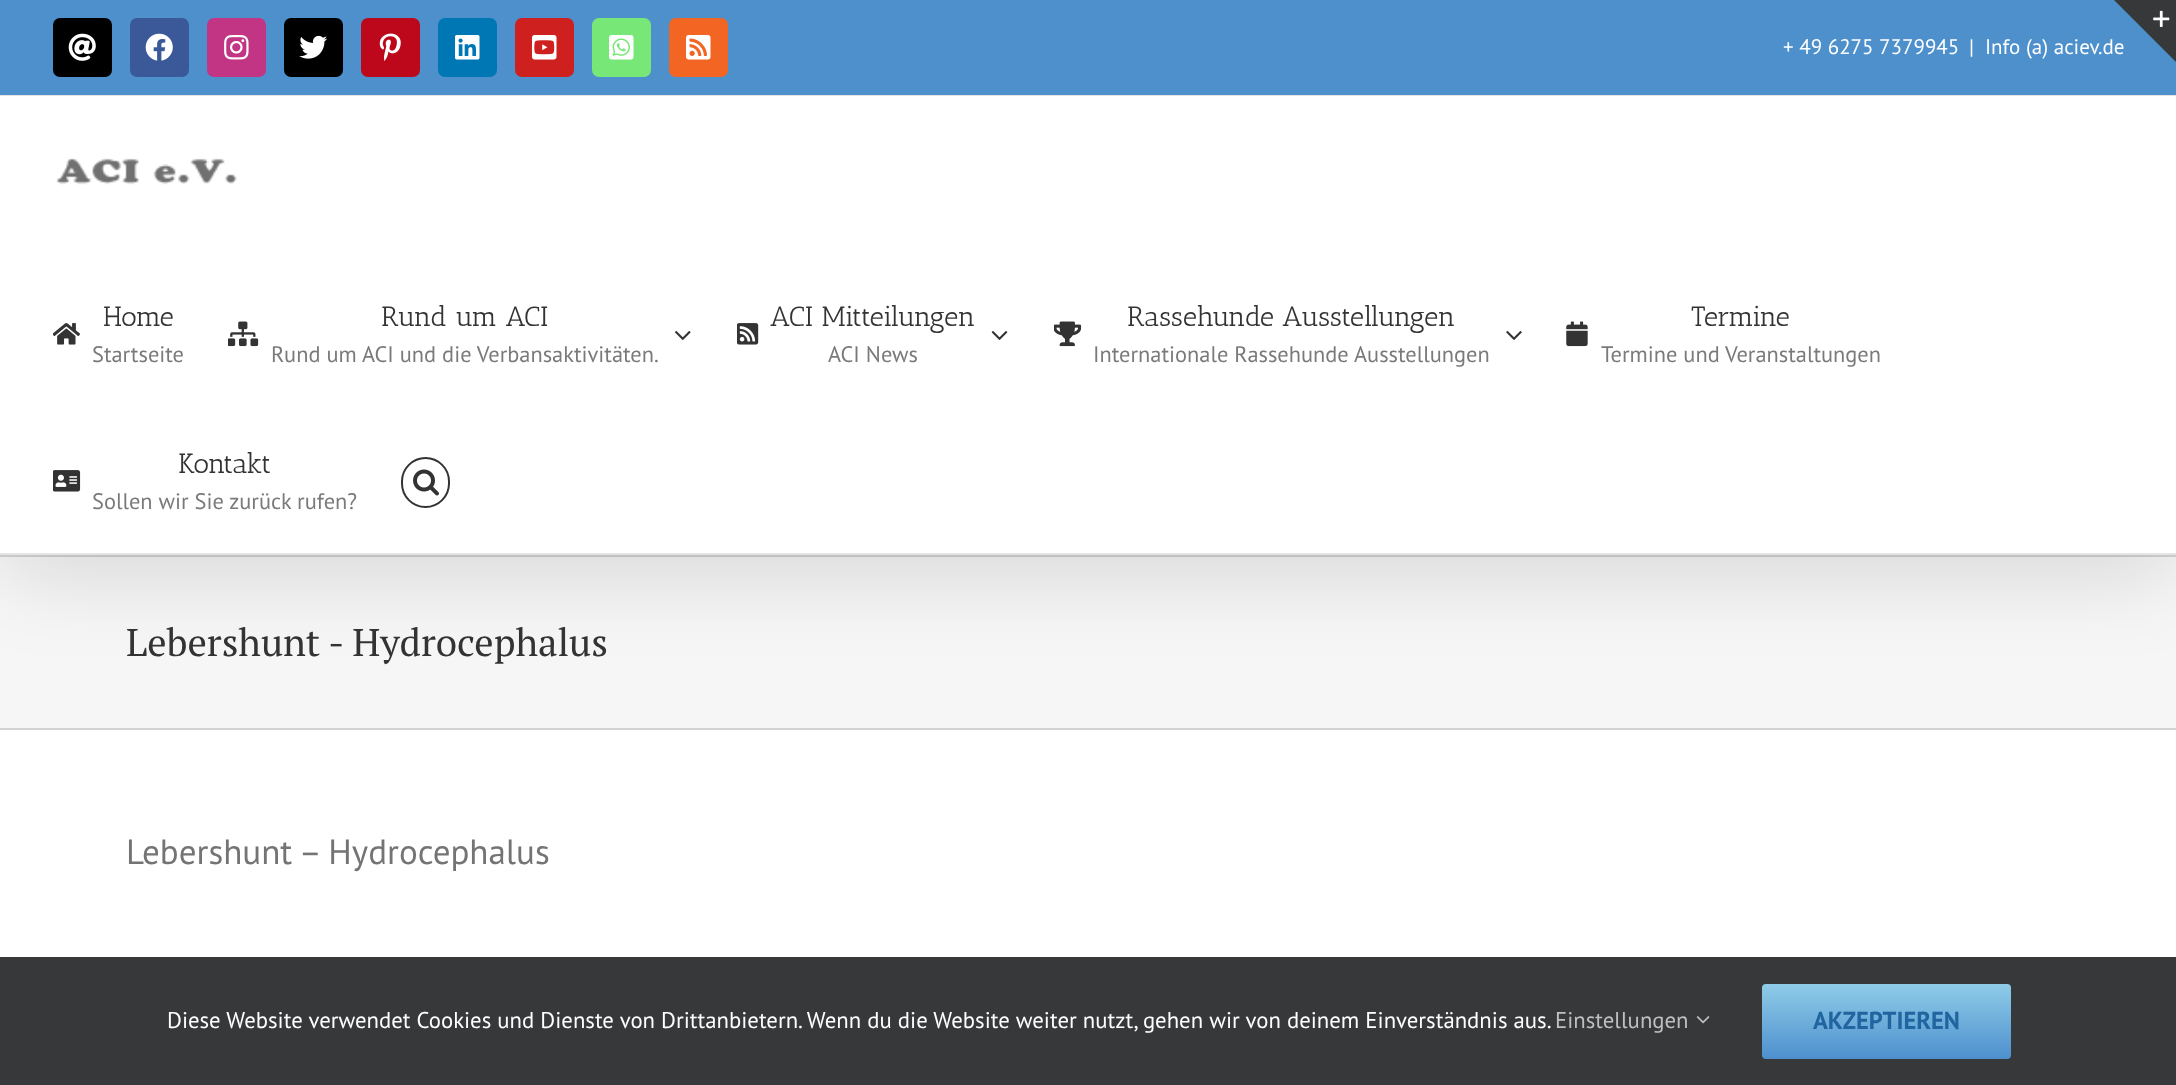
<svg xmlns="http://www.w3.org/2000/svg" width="2176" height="1085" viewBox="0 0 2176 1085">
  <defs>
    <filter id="blur1" x="-50%" y="-200%" width="200%" height="500%"><feGaussianBlur stdDeviation="44"/></filter>
    <linearGradient id="g1" gradientUnits="userSpaceOnUse" x1="1887" y1="984" x2="1887" y2="1059"><stop offset="0" stop-color="#8fcce8"/><stop offset="1" stop-color="#4e90ce"/></linearGradient>
  </defs>
  <rect width="100%" height="100%" fill="#ffffff"/>
  <rect x="0" y="557" width="2176" height="171" fill="#f6f6f6"/>
  <rect x="0" y="555" width="2176" height="2" fill="#d2d3d4"/>
  <rect x="4" y="21" width="2170" height="548" fill="#000000" fill-opacity="0.14" filter="url(#blur1)"/>
  <rect x="0" y="0" width="2176" height="95" fill="#4d90cc"/>
  <text x="1985" y="54" font-family="PT Sans" font-size="21" fill="#ffffff">Info (a) aciev.de</text>
  <path d="M2114 0H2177V63Z" fill="#363839"/>
  <image x="2153" y="10" width="17" height="17" href="img1.png"/>
  <rect x="0" y="95" width="2176" height="1" fill="#e5e5e5"/>
  <rect x="54" y="19" width="57" height="57" rx="6" fill="#000000" stroke="#000000" stroke-width="2"/>
  <image x="68" y="33" width="28" height="28" href="img2.png"/>
  <rect x="131" y="19" width="57" height="57" rx="6" fill="#3b5998" stroke="#3b5998" stroke-width="2"/>
  <image x="145" y="33" width="28" height="28" href="img3.png"/>
  <rect x="208" y="19" width="57" height="57" rx="6" fill="#c13584" stroke="#c13584" stroke-width="2"/>
  <image x="224" y="35" width="25" height="25" href="img4.png"/>
  <rect x="285" y="19" width="57" height="57" rx="6" fill="#000000" stroke="#000000" stroke-width="2"/>
  <image x="299" y="35" width="29" height="24" href="img5.png"/>
  <rect x="362" y="19" width="57" height="57" rx="6" fill="#bd081c" stroke="#bd081c" stroke-width="2"/>
  <image x="379" y="33" width="22" height="28" href="img6.png"/>
  <rect x="439" y="19" width="57" height="57" rx="6" fill="#0077b5" stroke="#0077b5" stroke-width="2"/>
  <image x="455" y="35" width="25" height="25" href="img7.png"/>
  <rect x="516" y="19" width="57" height="57" rx="6" fill="#cd201f" stroke="#cd201f" stroke-width="2"/>
  <image x="532" y="35" width="25" height="25" href="img8.png"/>
  <rect x="593" y="19" width="57" height="57" rx="6" fill="#77e878" stroke="#77e878" stroke-width="2"/>
  <image x="609" y="35" width="25" height="25" href="img9.png"/>
  <rect x="670" y="19" width="57" height="57" rx="6" fill="#f26522" stroke="#f26522" stroke-width="2"/>
  <image x="686" y="35" width="25" height="25" href="img10.png"/>
  <text x="1783" y="54" font-family="PT Sans" font-size="21" fill="#ffffff">+ 49 6275 7379945</text>
  <text x="1969" y="54" font-family="PT Sans" font-size="21" fill="#ffffff">|</text>
  <rect x="0" y="96" width="2176" height="457" fill="#ffffff"/>
  <rect x="0" y="553" width="2176" height="2" fill="#e5e5e5"/>
  <image x="56" y="158" width="181" height="27" href="img11.png"/>
  <image x="53" y="323" width="27" height="22" href="img12.png"/>
  <text x="103" y="326" font-family="Antic Slab" font-size="28" fill="#333333">Home</text>
  <text x="92" y="362" font-family="PT Sans" font-size="22.4" fill="#7a7a7a">Startseite</text>
  <image x="228" y="321" width="31" height="26" href="img13.png"/>
  <text x="381" y="326" font-family="Antic Slab" font-size="28" fill="#333333">Rund um ACI</text>
  <text x="271" y="362" font-family="PT Sans" font-size="22.4" fill="#7a7a7a">Rund um ACI und die Verbansaktivitäten.</text>
  <image x="675" y="331" width="16" height="9" href="img14.png"/>
  <image x="737" y="323" width="22" height="22" href="img15.png"/>
  <text x="770" y="326" font-family="Antic Slab" font-size="28" fill="#333333">ACI Mitteilungen</text>
  <text x="828" y="362" font-family="PT Sans" font-size="22.4" fill="#7a7a7a">ACI News</text>
  <image x="991" y="331" width="17" height="9" href="img16.png"/>
  <image x="1054" y="321" width="28" height="26" href="img17.png"/>
  <text x="1127" y="326" font-family="Antic Slab" font-size="28" fill="#333333">Rassehunde Ausstellungen</text>
  <text x="1093" y="362" font-family="PT Sans" font-size="22.4" fill="#7a7a7a">Internationale Rassehunde Ausstellungen</text>
  <image x="1506" y="331" width="16" height="9" href="img18.png"/>
  <image x="1566" y="321" width="22" height="26" href="img19.png"/>
  <text x="1691" y="326" font-family="Antic Slab" font-size="28" fill="#333333">Termine</text>
  <text x="1601" y="362" font-family="PT Sans" font-size="22.4" fill="#7a7a7a">Termine und Veranstaltungen</text>
  <image x="53" y="470" width="28" height="22" href="img20.png"/>
  <text x="178" y="473" font-family="Antic Slab" font-size="28" fill="#333333">Kontakt</text>
  <text x="92" y="509" font-family="PT Sans" font-size="22.4" fill="#7a7a7a">Sollen wir Sie zurück rufen?</text>
  <rect x="402" y="458" width="47" height="49" rx="23.5" fill="none" stroke="#333333" stroke-width="2"/>
  <image x="413" y="469" width="26" height="27" href="img21.png"/>
  <rect x="0" y="728" width="2176" height="2" fill="#d2d3d4"/>
  <text x="126" y="656" font-family="PT Serif" font-size="38.5" fill="#333333">Lebershunt - Hydrocephalus</text>
  <text x="126" y="864" font-family="PT Sans" font-size="35" fill="#747474">Lebershunt – Hydrocephalus</text>
  <rect x="0" y="957" width="2176" height="128" fill="#363839"/>
  <text x="167" y="1028" font-family="PT Sans" font-size="22.75" fill="#ffffff">Diese Website verwendet Cookies und Dienste von Drittanbietern. Wenn du die Website weiter nutzt, gehen wir von deinem Einverständnis aus.</text>
  <text x="1555" y="1028" font-family="PT Sans" font-size="22.75" fill="#bfbfbf">Einstellungen</text>
  <image x="1696" y="1016" width="14" height="8" href="img22.png"/>
  <rect x="1762" y="984" width="249" height="75" rx="4" fill="url(#g1)"/>
  <text x="1813" y="1029" font-family="PT Sans" font-size="24.5" font-weight="bold" fill="#2064a0">AKZEPTIEREN</text>
</svg>
